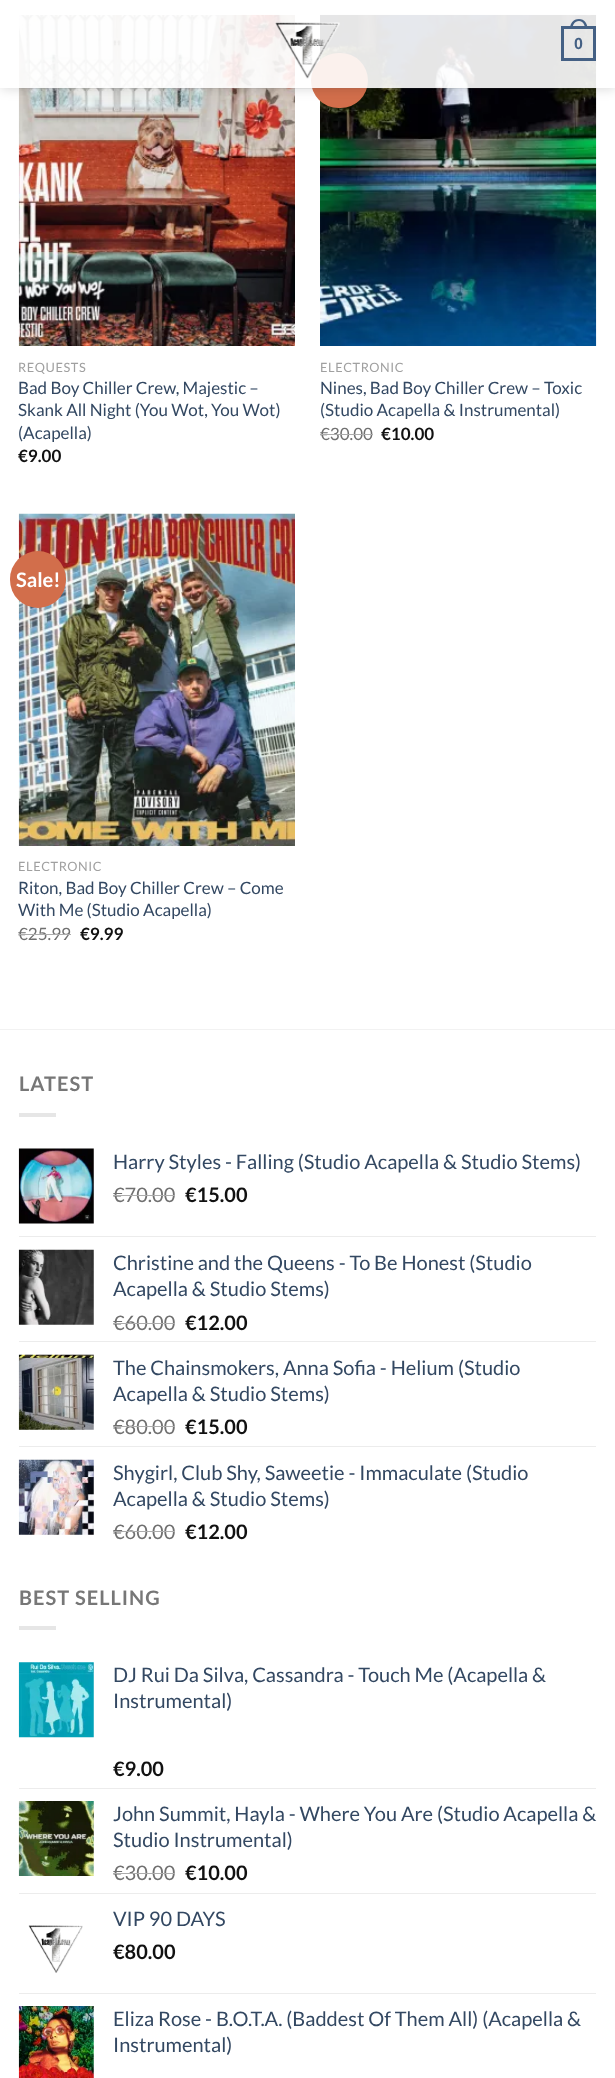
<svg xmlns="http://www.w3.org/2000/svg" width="615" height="2078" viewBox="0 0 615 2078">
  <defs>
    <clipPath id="clip1"><path d="M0 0H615V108H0ZM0 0H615V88H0Z" clip-rule="evenodd"/></clipPath>
    <filter id="blur1" x="-50%" y="-200%" width="200%" height="500%"><feGaussianBlur stdDeviation="6"/></filter>
    <clipPath id="clip2"><rect x="113" y="1355" width="483" height="53"/></clipPath>
  </defs>
  <rect width="100%" height="100%" fill="#ffffff"/>
  <image x="18" y="14" width="277" height="332" href="img2.png"/>
  <image x="320" y="14" width="277" height="332" href="img3.png"/>
  <rect x="311" y="53" width="57" height="55" rx="27.5" fill="#d26e4b"/>
  <g clip-path="url(#clip1)">
    <rect x="1" y="1" width="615" height="88" fill="#000000" fill-opacity="0.15" filter="url(#blur1)"/>
  </g>
  <rect x="0" y="14" width="615" height="74" fill="#ffffff" fill-opacity="0.9"/>
  <image x="275" y="22" width="65" height="57" href="img1.png"/>
  <rect x="562.5" y="27.5" width="32" height="32" fill="none" stroke="#446084" stroke-width="3"/>
  <path d="M579 19C584.5 19 587.5 23.5 587.5 29H570C570 23.5 573 19 579 19ZM579 21C583 21 585 25 585 29H572.5C572.5 25 574.5 21 579 21Z" fill="#446084" fill-rule="evenodd"/>
  <text x="574" y="49" font-family="Liberation Sans" font-size="16" font-weight="bold" fill="#446084">0</text>
  <rect x="19" y="88" width="577" height="1" fill="#777777" fill-opacity="0.1"/>
  <text x="18" y="372" font-family="Lato" font-size="12.75" letter-spacing="0.6" fill="#a0a0a0">REQUESTS</text>
  <text x="18" y="394" font-family="Lato" font-size="17" fill="#334862">Bad Boy Chiller Crew, Majestic –</text>
  <text x="18" y="416" font-family="Lato" font-size="17" fill="#334862">Skank All Night (You Wot, You Wot)</text>
  <text x="18" y="439" font-family="Lato" font-size="17" fill="#334862">(Acapella)</text>
  <text x="18" y="462" font-family="Lato" font-size="17" font-weight="bold" fill="#111111">€9.00</text>
  <text x="320" y="372" font-family="Lato" font-size="12.75" letter-spacing="0.6" fill="#a0a0a0">ELECTRONIC</text>
  <text x="320" y="394" font-family="Lato" font-size="17" fill="#334862">Nines, Bad Boy Chiller Crew – Toxic</text>
  <text x="320" y="416" font-family="Lato" font-size="17" fill="#334862">(Studio Acapella &amp; Instrumental)</text>
  <text x="320" y="440" font-family="Lato" font-size="17" fill="#707070">€30.00</text>
  <rect x="320" y="434" width="53" height="1" fill="#adadad"/>
  <text x="381" y="440" font-family="Lato" font-size="17" font-weight="bold" fill="#111111">€10.00</text>
  <image x="18" y="513" width="277" height="333" href="img4.png"/>
  <rect x="10" y="551" width="56" height="57" rx="28" fill="#d26e4b"/>
  <text x="16" y="587" font-family="Lato" font-size="20" font-weight="bold" fill="#ffffff">Sale!</text>
  <text x="18" y="871" font-family="Lato" font-size="12.75" letter-spacing="0.6" fill="#a0a0a0">ELECTRONIC</text>
  <text x="18" y="894" font-family="Lato" font-size="17" fill="#334862">Riton, Bad Boy Chiller Crew – Come</text>
  <text x="18" y="916" font-family="Lato" font-size="17" fill="#334862">With Me (Studio Acapella)</text>
  <text x="18" y="940" font-family="Lato" font-size="17" fill="#707070">€25.99</text>
  <rect x="19" y="934" width="52" height="1" fill="#adadad"/>
  <text x="80" y="940" font-family="Lato" font-size="17" font-weight="bold" fill="#111111">€9.99</text>
  <rect x="0" y="1029" width="615" height="1" fill="#f2f2f2"/>
  <text x="19" y="1091" font-family="Lato" font-size="20" font-weight="bold" letter-spacing="1" fill="#777777">LATEST</text>
  <rect x="19" y="1113" width="37" height="4" fill="#e6e6e6"/>
  <image x="18" y="1148" width="76" height="76" href="img5.png"/>
  <text x="113" y="1169" font-family="Lato" font-size="20" fill="#334862">Harry Styles - Falling (Studio Acapella &amp; Studio Stems)</text>
  <text x="113" y="1202" font-family="Lato" font-size="20" fill="#707070">€70.00</text>
  <rect x="113" y="1195" width="62" height="1" fill="#adadad"/>
  <text x="185" y="1202" font-family="Lato" font-size="20" font-weight="bold" fill="#111111">€15.00</text>
  <rect x="19" y="1236" width="577" height="1" fill="#ececec"/>
  <image x="18" y="1249" width="76" height="76" href="img6.png"/>
  <text x="113" y="1270" font-family="Lato" font-size="20" fill="#334862">Christine and the Queens - To Be Honest (Studio</text>
  <text x="113" y="1296" font-family="Lato" font-size="20" fill="#334862">Acapella &amp; Studio Stems)</text>
  <text x="113" y="1330" font-family="Lato" font-size="20" fill="#707070">€60.00</text>
  <rect x="113" y="1323" width="62" height="1" fill="#adadad"/>
  <text x="185" y="1330" font-family="Lato" font-size="20" font-weight="bold" fill="#111111">€12.00</text>
  <rect x="19" y="1341" width="577" height="1" fill="#ececec"/>
  <image x="18" y="1354" width="76" height="76" href="img7.png"/>
  <g clip-path="url(#clip2)">
    <text x="113" y="1375" font-family="Lato" font-size="20" fill="#334862">The Chainsmokers, Anna Sofia - Helium (Studio</text>
  </g>
  <text x="113" y="1401" font-family="Lato" font-size="20" fill="#334862">Acapella &amp; Studio Stems)</text>
  <text x="113" y="1434" font-family="Lato" font-size="20" fill="#707070">€80.00</text>
  <rect x="113" y="1426" width="62" height="1" fill="#adadad"/>
  <text x="185" y="1434" font-family="Lato" font-size="20" font-weight="bold" fill="#111111">€15.00</text>
  <rect x="19" y="1446" width="577" height="1" fill="#ececec"/>
  <image x="18" y="1459" width="76" height="76" href="img8.png"/>
  <text x="113" y="1480" font-family="Lato" font-size="20" fill="#334862">Shygirl, Club Shy, Saweetie - Immaculate (Studio</text>
  <text x="113" y="1506" font-family="Lato" font-size="20" fill="#334862">Acapella &amp; Studio Stems)</text>
  <text x="113" y="1539" font-family="Lato" font-size="20" fill="#707070">€60.00</text>
  <rect x="113" y="1531" width="62" height="1" fill="#adadad"/>
  <text x="185" y="1539" font-family="Lato" font-size="20" font-weight="bold" fill="#111111">€12.00</text>
  <text x="19" y="1605" font-family="Lato" font-size="20" font-weight="bold" letter-spacing="1" fill="#777777">BEST SELLING</text>
  <rect x="19" y="1626" width="37" height="4" fill="#e6e6e6"/>
  <image x="18" y="1662" width="76" height="76" href="img9.png"/>
  <text x="113" y="1682" font-family="Lato" font-size="20" fill="#334862">DJ Rui Da Silva, Cassandra - Touch Me (Acapella &amp;</text>
  <text x="113" y="1708" font-family="Lato" font-size="20" fill="#334862">Instrumental)</text>
  <text x="113" y="1776" font-family="Lato" font-size="20" font-weight="bold" fill="#111111">€9.00</text>
  <rect x="19" y="1788" width="577" height="1" fill="#ececec"/>
  <image x="18" y="1801" width="76" height="75" href="img10.png"/>
  <text x="113" y="1821" font-family="Lato" font-size="20" fill="#334862">John Summit, Hayla - Where You Are (Studio Acapella &amp;</text>
  <text x="113" y="1847" font-family="Lato" font-size="20" fill="#334862">Studio Instrumental)</text>
  <text x="113" y="1880" font-family="Lato" font-size="20" fill="#707070">€30.00</text>
  <rect x="113" y="1873" width="62" height="1" fill="#adadad"/>
  <text x="185" y="1880" font-family="Lato" font-size="20" font-weight="bold" fill="#111111">€10.00</text>
  <rect x="19" y="1893" width="577" height="1" fill="#ececec"/>
  <text x="113" y="1926" font-family="Lato" font-size="20" fill="#334862">VIP 90 DAYS</text>
  <image x="28" y="1925" width="55" height="48" href="img11.png"/>
  <text x="113" y="1959" font-family="Lato" font-size="20" font-weight="bold" fill="#111111">€80.00</text>
  <rect x="19" y="1993" width="577" height="1" fill="#ececec"/>
  <image x="18" y="2006" width="76" height="72" href="img12.png"/>
  <text x="113" y="2026" font-family="Lato" font-size="20" fill="#334862">Eliza Rose - B.O.T.A. (Baddest Of Them All) (Acapella &amp;</text>
  <text x="113" y="2052" font-family="Lato" font-size="20" fill="#334862">Instrumental)</text>
</svg>
